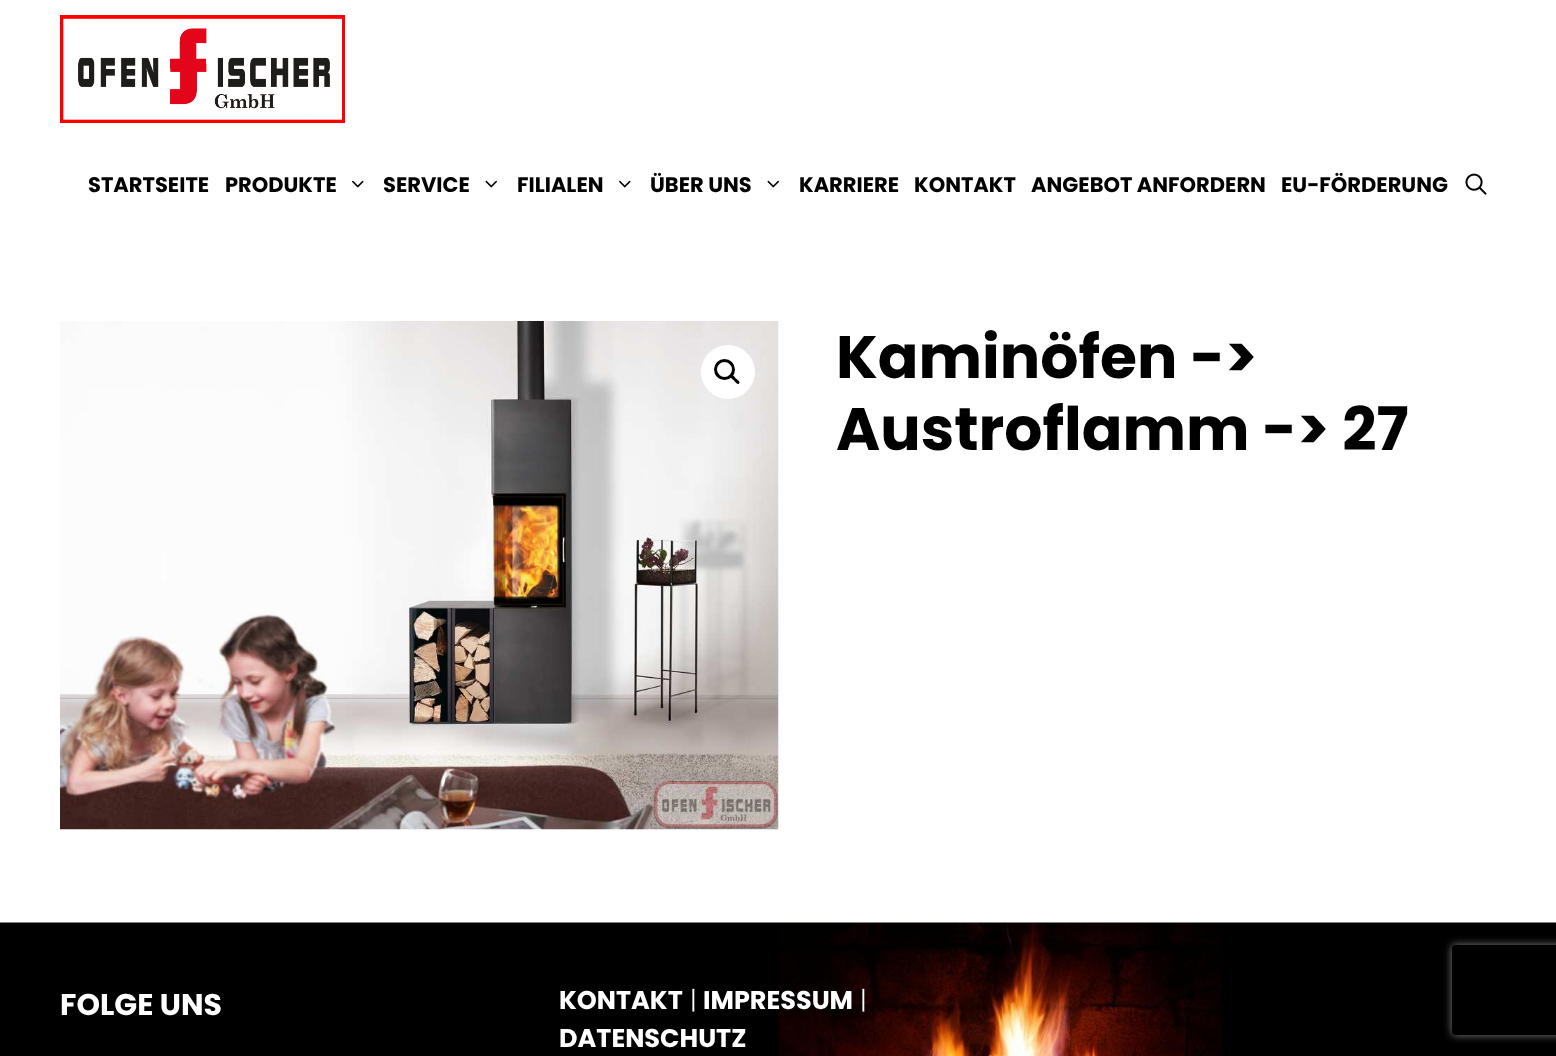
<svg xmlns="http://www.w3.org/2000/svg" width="1556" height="1056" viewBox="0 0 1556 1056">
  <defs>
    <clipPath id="clip1"><path d="M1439 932H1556V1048H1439ZM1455 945H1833C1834.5 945 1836 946.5 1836 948V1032C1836 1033.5 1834.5 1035 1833 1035H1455C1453.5 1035 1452 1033.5 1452 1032V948C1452 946.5 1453.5 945 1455 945Z" clip-rule="evenodd"/></clipPath>
    <filter id="blur1" x="-50%" y="-200%" width="200%" height="500%"><feGaussianBlur stdDeviation="4"/></filter>
  </defs>
  <rect width="100%" height="100%" fill="#ffffff"/>
  <image x="60" y="15" width="285" height="108" href="img1.png"/>
  <text x="88" y="192" font-family="Poppins" font-size="21" font-weight="bold" fill="#000000">STARTSEITE</text>
  <text x="225" y="192" font-family="Poppins" font-size="21" font-weight="bold" fill="#000000">PRODUKTE</text>
  <image x="352" y="180" width="12" height="8" href="img2.png"/>
  <text x="383" y="192" font-family="Poppins" font-size="21" font-weight="bold" fill="#000000">SERVICE</text>
  <image x="485" y="180" width="12" height="8" href="img3.png"/>
  <text x="517" y="192" font-family="Poppins" font-size="21" font-weight="bold" fill="#000000">FILIALEN</text>
  <image x="619" y="180" width="12" height="8" href="img2.png"/>
  <text x="650" y="192" font-family="Poppins" font-size="21" font-weight="bold" fill="#000000">ÜBER UNS</text>
  <image x="767" y="180" width="12" height="8" href="img3.png"/>
  <text x="799" y="192" font-family="Poppins" font-size="21" font-weight="bold" fill="#000000">KARRIERE</text>
  <text x="914" y="192" font-family="Poppins" font-size="21" font-weight="bold" fill="#000000">KONTAKT</text>
  <text x="1031" y="192" font-family="Poppins" font-size="21" font-weight="bold" fill="#000000">ANGEBOT ANFORDERN</text>
  <text x="1281" y="192" font-family="Poppins" font-size="21" font-weight="bold" fill="#000000">EU-FÖRDERUNG</text>
  <image x="1465" y="173" width="22" height="22" href="img4.png"/>
  <image x="60" y="321" width="719" height="509" href="img5.png"/>
  <circle cx="728" cy="372" r="27" fill="#ffffff"/>
  <circle cx="724.5" cy="369.5" r="9" fill="none" stroke="#000000" stroke-width="3"/>
  <path d="M731 375C732.5 373.5 735 377.5 736 378.5C737 379.5 741 382 739 383.5C737.5 385.5 735 381.5 734 380.5C733 379.5 729 377 731 375Z" fill="#000000"/>
  <text x="836" y="378" font-family="Poppins" font-size="60" font-weight="bold" fill="#000000">Kaminöfen -&gt;</text>
  <text x="836" y="450" font-family="Poppins" font-size="60" font-weight="bold" fill="#000000">Austroflamm -&gt; 27</text>
  <image x="0" y="922" width="1556" height="134" href="img6.png"/>
  <text x="60" y="1015" font-family="Poppins" font-size="30" font-weight="bold" fill="#ffffff">FOLGE UNS</text>
  <text x="559" y="1009" font-family="Poppins" font-size="25.5" font-weight="bold" fill="#ffffff">KONTAKT</text>
  <text x="690" y="1009" font-family="Poppins" font-size="25.5" font-weight="300" fill="#ffffff">|</text>
  <text x="703" y="1009" font-family="Poppins" font-size="25.5" font-weight="bold" fill="#ffffff">IMPRESSUM</text>
  <text x="860" y="1009" font-family="Poppins" font-size="25.5" font-weight="300" fill="#ffffff">|</text>
  <text x="559" y="1047" font-family="Poppins" font-size="25.5" font-weight="bold" fill="#ffffff">DATENSCHUTZ</text>
  <g clip-path="url(#clip1)">
    <rect x="1452" y="945" width="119" height="90" rx="3" fill="#808080" filter="url(#blur1)"/>
  </g>
</svg>
